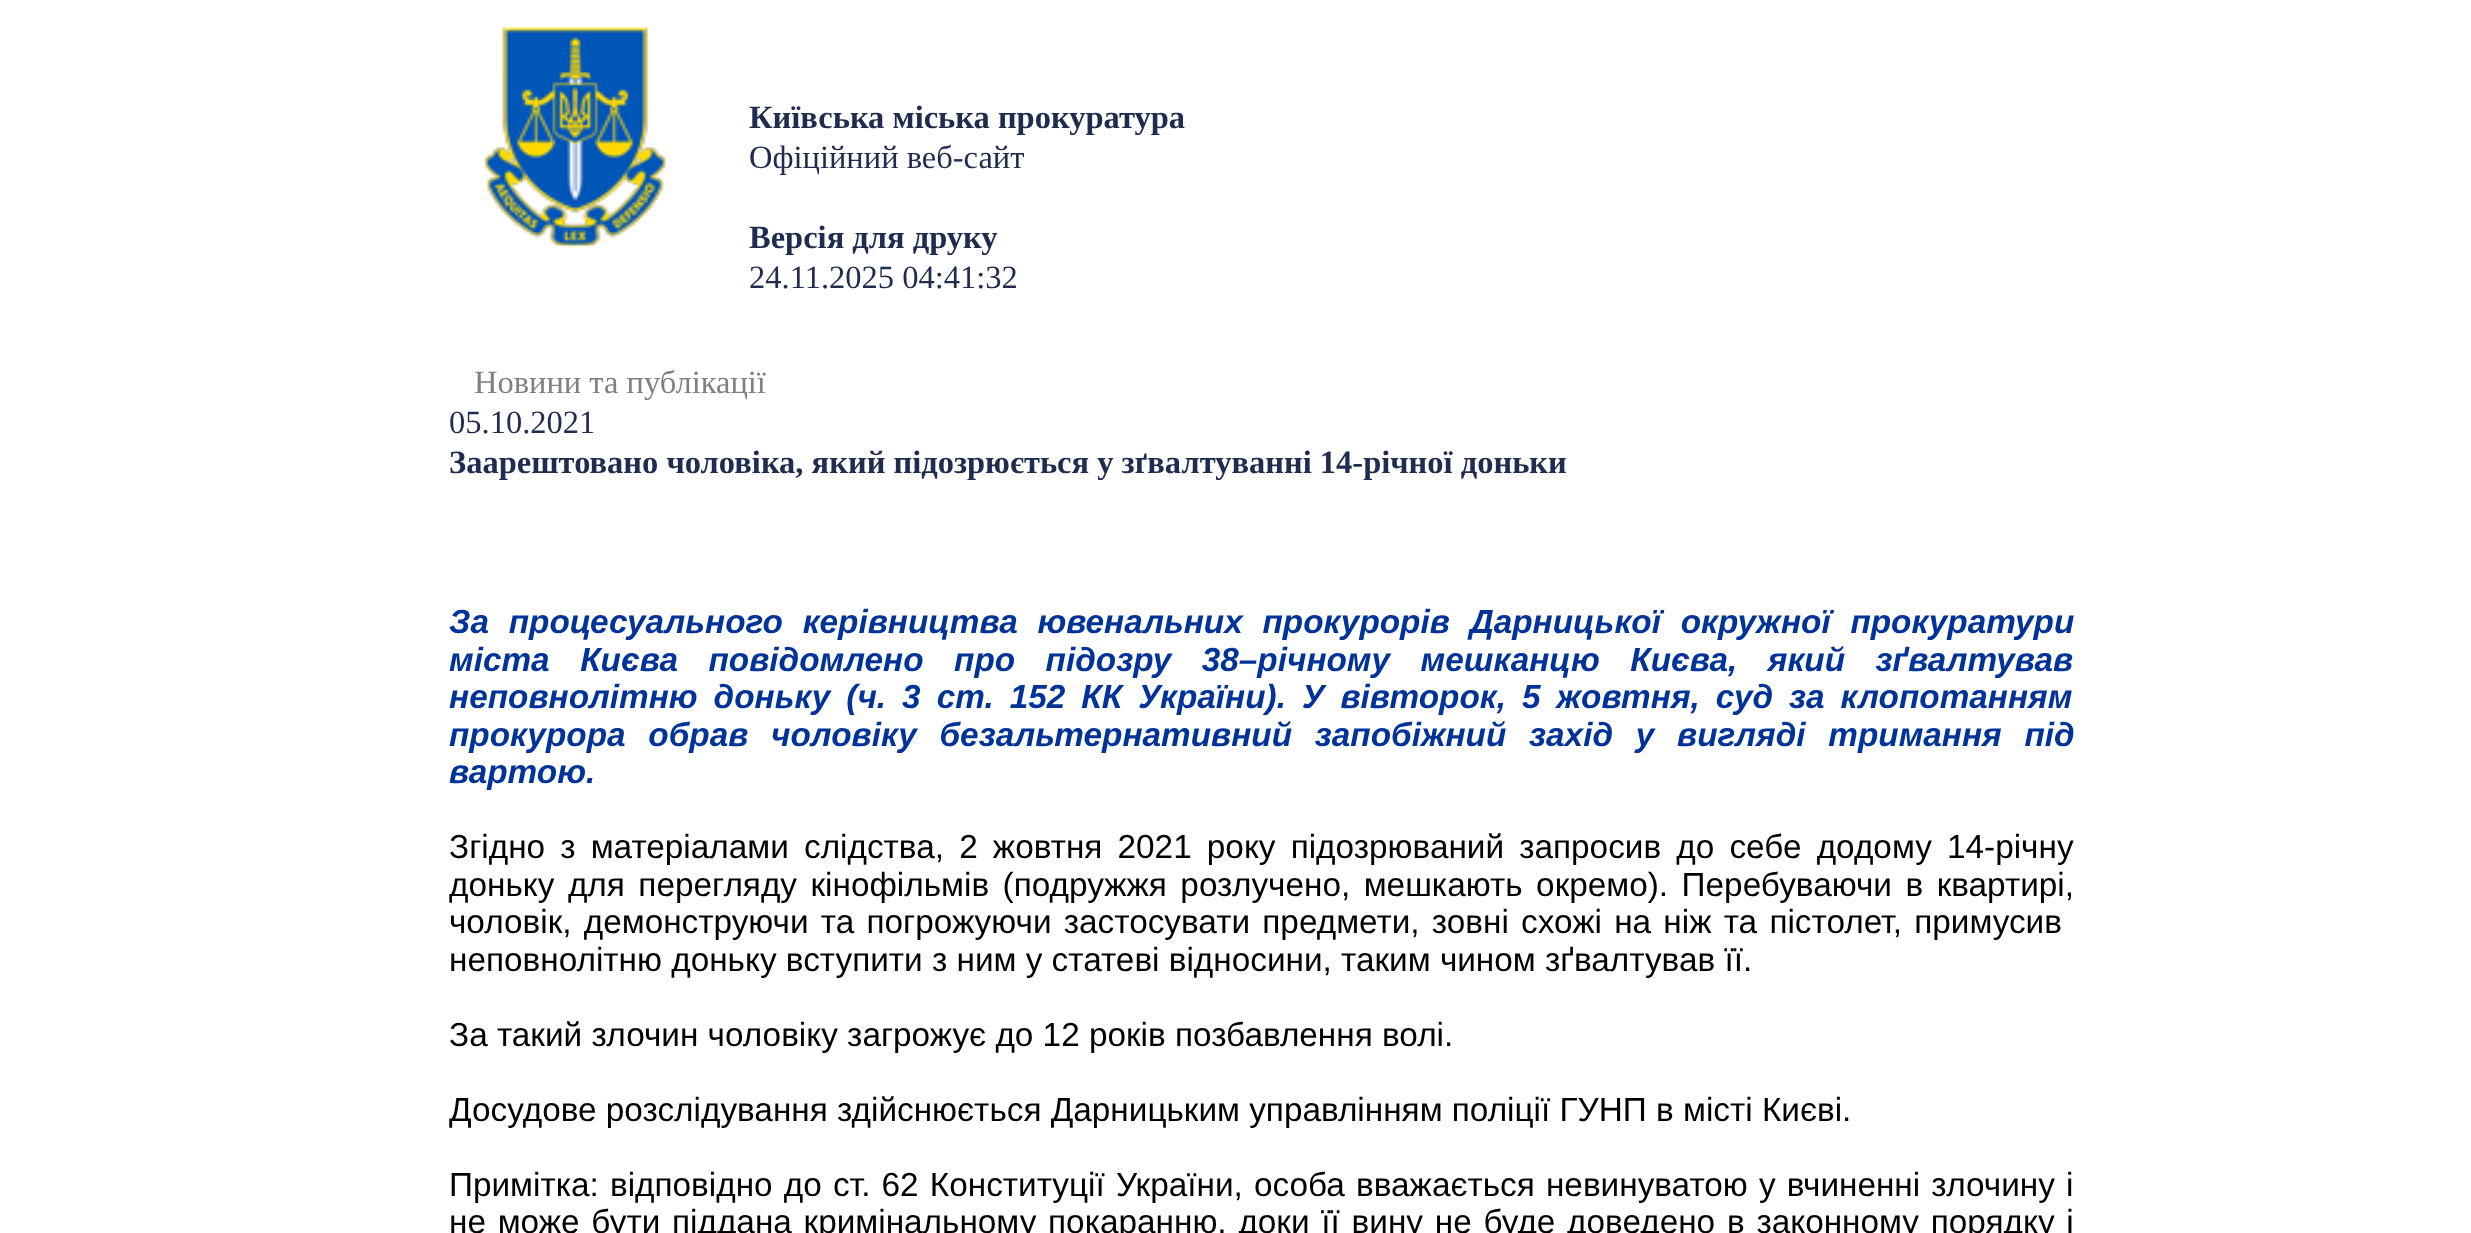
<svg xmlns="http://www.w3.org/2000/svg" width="2471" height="1233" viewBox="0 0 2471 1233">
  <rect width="100%" height="100%" fill="#ffffff"/>
  <image x="484" y="26" width="184" height="223" href="img1.png"/>
  <text x="749" y="128" font-family="Liberation Serif" font-size="32.5" font-weight="bold" fill="#1f2c4f">Київська міська прокуратура</text>
  <text x="749" y="168" font-family="Liberation Serif" font-size="32.5" fill="#1f2c4f">Офіційний веб-сайт</text>
  <text x="749" y="248" font-family="Liberation Serif" font-size="32.5" font-weight="bold" fill="#1f2c4f">Версія для друку</text>
  <text x="749" y="288" font-family="Liberation Serif" font-size="32.5" fill="#1f2c4f">24.11.2025 04:41:32</text>
  <text x="474" y="393" font-family="Liberation Serif" font-size="32.5" fill="#808080">Новини та публікації</text>
  <text x="449" y="433" font-family="Liberation Serif" font-size="32.5" fill="#1f2c4f">05.10.2021</text>
  <text x="449" y="473" font-family="Liberation Serif" font-size="32.5" font-weight="bold" fill="#1f2c4f">Заарештовано чоловіка, який підозрюється у зґвалтуванні 14-річної доньки</text>
  <text x="449" y="633" word-spacing="10.5" font-family="Liberation Sans" font-size="33.35" font-weight="bold" font-style="italic" fill="#003399">За процесуального керівництва ювенальних прокурорів Дарницької окружної прокуратури</text>
  <text x="449" y="671" word-spacing="21.25" font-family="Liberation Sans" font-size="33.35" font-weight="bold" font-style="italic" fill="#003399">міста Києва повідомлено про підозру 38–річному мешканцю Києва, який зґвалтував</text>
  <text x="449" y="708" word-spacing="6.75" font-family="Liberation Sans" font-size="33.35" font-weight="bold" font-style="italic" fill="#003399">неповнолітню доньку (ч. 3 ст. 152 КК України). У вівторок, 5 жовтня, суд за клопотанням</text>
  <text x="449" y="746" word-spacing="13.5" font-family="Liberation Sans" font-size="33.35" font-weight="bold" font-style="italic" fill="#003399">прокурора обрав чоловіку безальтернативний запобіжний захід у вигляді тримання під</text>
  <text x="449" y="783" font-family="Liberation Sans" font-size="33.35" font-weight="bold" font-style="italic" fill="#003399">вартою.</text>
  <text x="449" y="858" word-spacing="5.9" font-family="Liberation Sans" font-size="33.35" fill="#000000">Згідно з матеріалами слідства, 2 жовтня 2021 року підозрюваний запросив до себе додому 14-річну</text>
  <text x="449" y="896" word-spacing="4.25" font-family="Liberation Sans" font-size="33.35" fill="#000000">доньку для перегляду кінофільмів (подружжя розлучено, мешкають окремо). Перебуваючи в квартирі,</text>
  <text x="449" y="933" word-spacing="3" font-family="Liberation Sans" font-size="33.35" fill="#000000">чоловік, демонструючи та погрожуючи застосувати предмети, зовні схожі на ніж та пістолет, примусив</text>
  <text x="449" y="971" font-family="Liberation Sans" font-size="33.35" fill="#000000">неповнолітню доньку вступити з ним у статеві відносини, таким чином зґвалтував її.</text>
  <text x="449" y="1046" font-family="Liberation Sans" font-size="33.35" fill="#000000">За такий злочин чоловіку загрожує до 12 років позбавлення волі.</text>
  <text x="449" y="1121" font-family="Liberation Sans" font-size="33.35" fill="#000000">Досудове розслідування здійснюється Дарницьким управлінням поліції ГУНП в місті Києві.</text>
  <text x="449" y="1196" word-spacing="1.9" font-family="Liberation Sans" font-size="33.35" fill="#000000">Примітка: відповідно до ст. 62 Конституції України, особа вважається невинуватою у вчиненні злочину і</text>
  <text x="449" y="1233" word-spacing="2.5" font-family="Liberation Sans" font-size="33.35" fill="#000000">не може бути піддана кримінальному покаранню, доки її вину не буде доведено в законному порядку і</text>
</svg>
